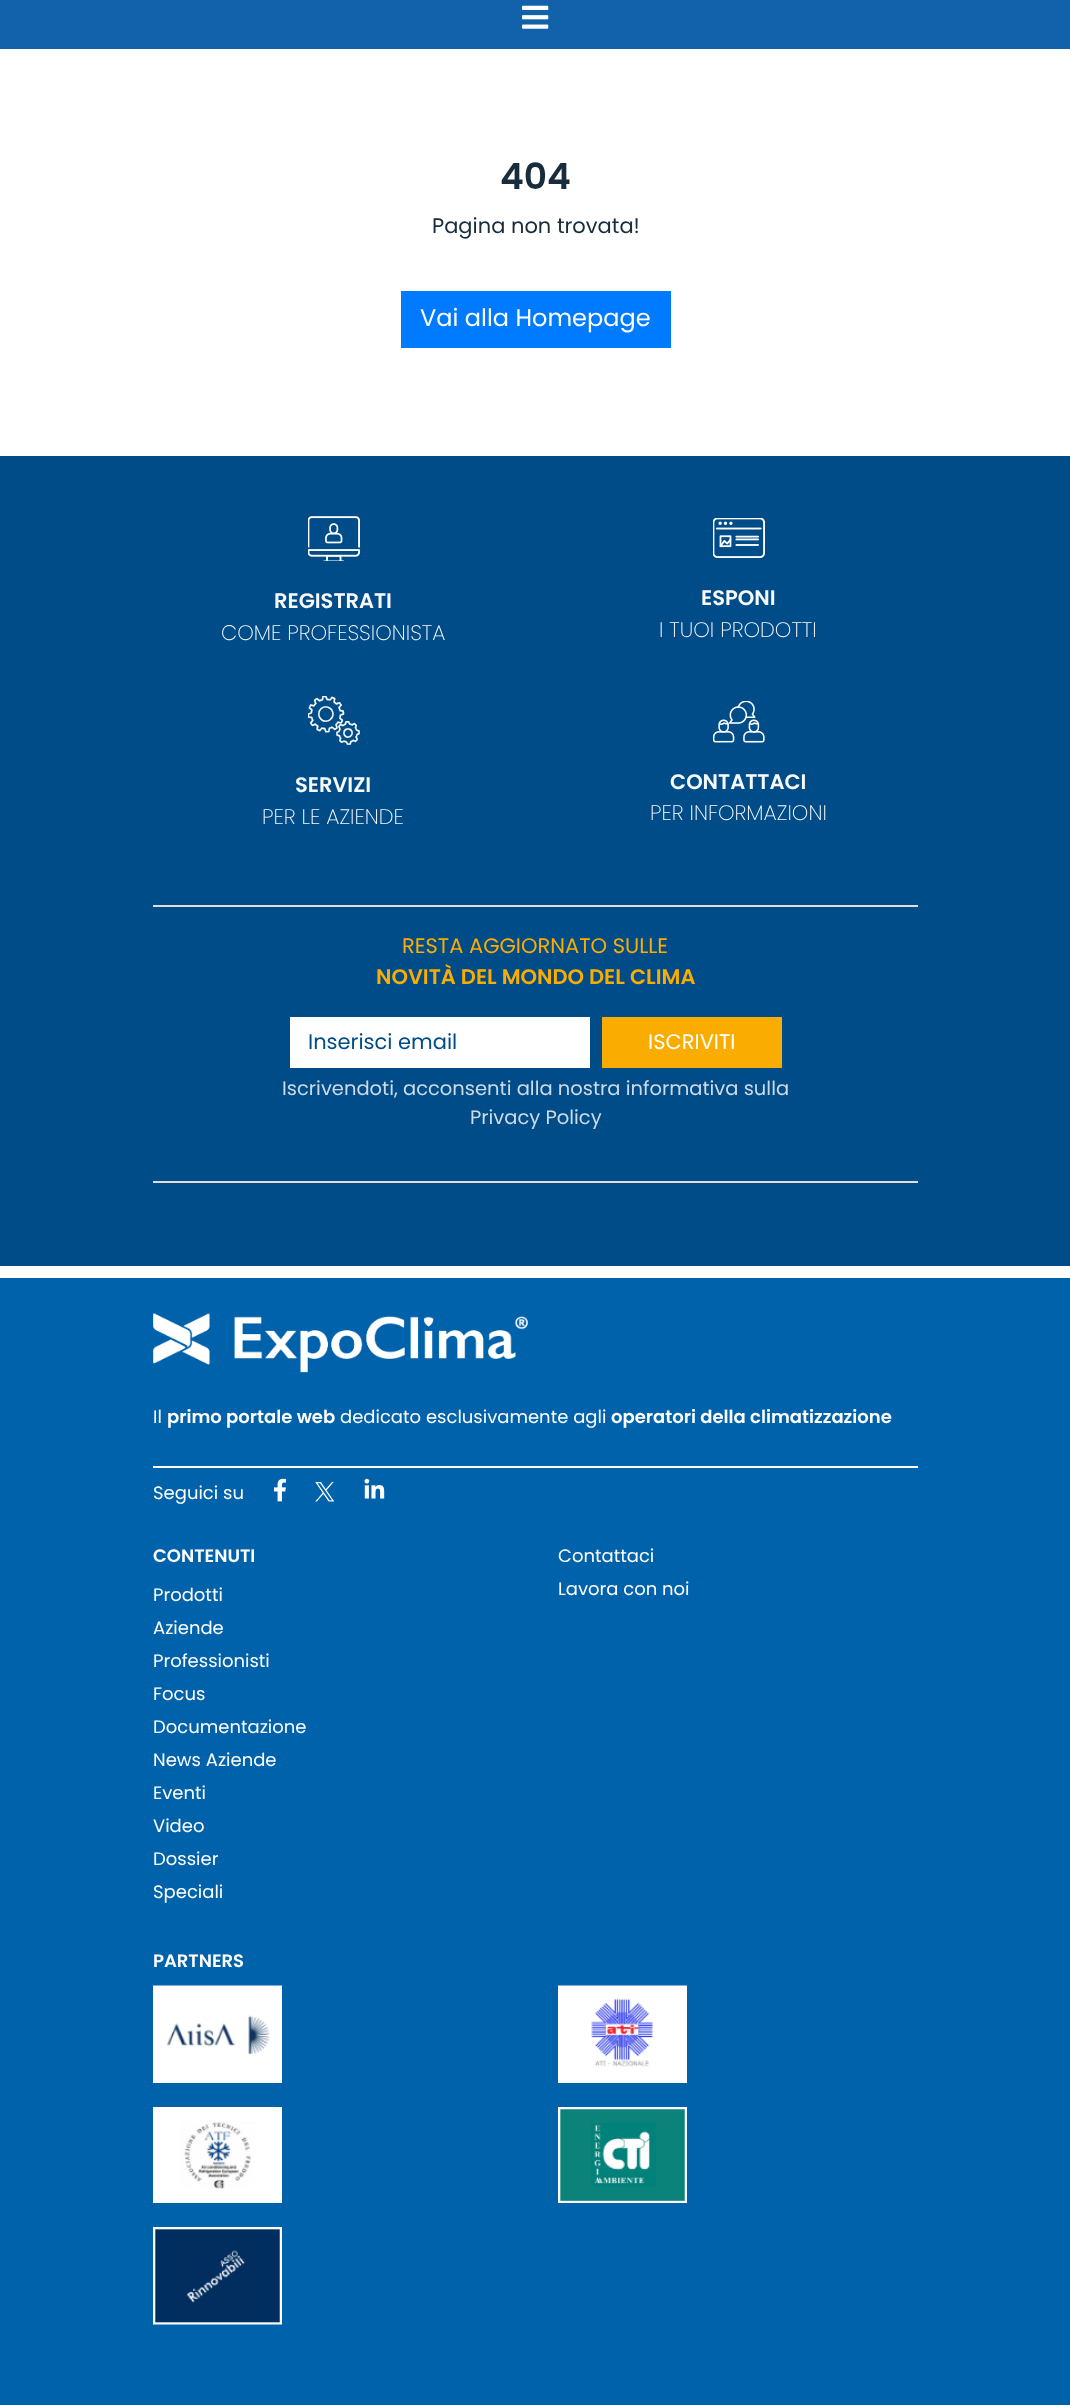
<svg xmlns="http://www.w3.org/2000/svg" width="1070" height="2405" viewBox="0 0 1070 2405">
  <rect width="100%" height="100%" fill="#ffffff"/>
  <rect x="0" y="0" width="1070" height="49" fill="#1162ab"/>
  <image x="522" y="5" width="27" height="24" href="img1.png"/>
  <text x="500" y="189" font-family="Poppins" font-size="36" font-weight="600" fill="#182c3c">404</text>
  <text x="432" y="233" font-family="Poppins" font-size="21" fill="#182c3c">Pagina non trovata!</text>
  <rect x="401" y="291" width="270" height="57" fill="#007bff"/>
  <text x="420" y="326" font-family="Poppins" font-size="24" fill="#ffffff">Vai alla Homepage</text>
  <rect x="0" y="456" width="1070" height="810" fill="#004c88"/>
  <image x="308" y="516" width="52" height="45" href="img2.png"/>
  <text x="274" y="608" font-family="Poppins" font-size="21" font-weight="600" fill="#f8f9fa">REGISTRATI</text>
  <text x="221" y="640" font-family="Poppins" font-size="21" font-weight="200" fill="#f8f9fa">COME PROFESSIONISTA</text>
  <image x="713" y="518" width="52" height="40" href="img3.png"/>
  <text x="701" y="605" font-family="Poppins" font-size="21" font-weight="600" fill="#f8f9fa">ESPONI</text>
  <text x="659" y="637" font-family="Poppins" font-size="21" font-weight="200" fill="#f8f9fa">I TUOI PRODOTTI</text>
  <image x="308" y="696" width="52" height="49" href="img4.png"/>
  <text x="295" y="792" font-family="Poppins" font-size="21" font-weight="600" fill="#f8f9fa">SERVIZI</text>
  <text x="262" y="824" font-family="Poppins" font-size="21" font-weight="200" fill="#f8f9fa">PER LE AZIENDE</text>
  <image x="713" y="701" width="52" height="42" href="img5.png"/>
  <text x="670" y="789" font-family="Poppins" font-size="21" font-weight="600" fill="#f8f9fa">CONTATTACI</text>
  <text x="650" y="820" font-family="Poppins" font-size="21" font-weight="200" fill="#f8f9fa">PER INFORMAZIONI</text>
  <rect x="153" y="905" width="765" height="2" fill="#dedede"/>
  <text x="402" y="953" font-family="Poppins" font-size="21" fill="#faad00">RESTA AGGIORNATO SULLE</text>
  <text x="376" y="984" font-family="Poppins" font-size="21" font-weight="600" fill="#faad00">NOVITÀ DEL MONDO DEL CLIMA</text>
  <rect x="290" y="1017" width="300" height="51" fill="#ffffff"/>
  <text x="308" y="1049" font-family="Poppins" font-size="21" fill="#004c88">Inserisci email</text>
  <rect x="602" y="1017" width="180" height="51" fill="#faad00"/>
  <text x="648" y="1049" font-family="Poppins" font-size="21" fill="#ffffff">ISCRIVITI</text>
  <text x="282" y="1095" font-family="Poppins" font-size="19.5" fill="#ccdbe7">Iscrivendoti, acconsenti alla nostra informativa sulla</text>
  <text x="470" y="1124" font-family="Poppins" font-size="19.5" fill="#ccdbe7">Privacy Policy</text>
  <rect x="153" y="1181" width="765" height="2" fill="#dedede"/>
  <rect x="0" y="1278" width="1070" height="1127" fill="#0062ab"/>
  <image x="153" y="1313" width="375" height="60" href="img6.png"/>
  <text x="153" y="1423" font-family="Poppins" font-size="18" fill="#ffffff">Il</text>
  <text x="167" y="1423" font-family="Poppins" font-size="18" font-weight="600" fill="#ffffff">primo portale web</text>
  <text x="340" y="1423" font-family="Poppins" font-size="18" fill="#ffffff">dedicato esclusivamente agli</text>
  <text x="611" y="1423" font-family="Poppins" font-size="18" font-weight="600" fill="#ffffff">operatori della climatizzazione</text>
  <rect x="153" y="1466" width="765" height="2" fill="#ffffff"/>
  <text x="153" y="1499" font-family="Poppins" font-size="18" fill="#ffffff">Seguici su</text>
  <image x="274" y="1478" width="13" height="24" href="img7.png"/>
  <image x="315" y="1482" width="20" height="20" href="img8.png"/>
  <image x="364" y="1478" width="21" height="21" href="img9.png"/>
  <text x="153" y="1562" font-family="Poppins" font-size="18" font-weight="600" fill="#ffffff">CONTENUTI</text>
  <text x="153" y="1601" font-family="Poppins" font-size="18" fill="#ffffff">Prodotti</text>
  <text x="153" y="1634" font-family="Poppins" font-size="18" fill="#ffffff">Aziende</text>
  <text x="153" y="1667" font-family="Poppins" font-size="18" fill="#ffffff">Professionisti</text>
  <text x="153" y="1700" font-family="Poppins" font-size="18" fill="#ffffff">Focus</text>
  <text x="153" y="1733" font-family="Poppins" font-size="18" fill="#ffffff">Documentazione</text>
  <text x="153" y="1766" font-family="Poppins" font-size="18" fill="#ffffff">News Aziende</text>
  <text x="153" y="1799" font-family="Poppins" font-size="18" fill="#ffffff">Eventi</text>
  <text x="153" y="1832" font-family="Poppins" font-size="18" fill="#ffffff">Video</text>
  <text x="153" y="1865" font-family="Poppins" font-size="18" fill="#ffffff">Dossier</text>
  <text x="153" y="1898" font-family="Poppins" font-size="18" fill="#ffffff">Speciali</text>
  <text x="558" y="1562" font-family="Poppins" font-size="18" fill="#ffffff">Contattaci</text>
  <text x="558" y="1595" font-family="Poppins" font-size="18" fill="#ffffff">Lavora con noi</text>
  <text x="153" y="1967" font-family="Poppins" font-size="18" font-weight="600" fill="#ffffff">PARTNERS</text>
  <image x="153" y="1985" width="129" height="98" href="img10.png"/>
  <image x="558" y="1985" width="129" height="98" href="img11.png"/>
  <image x="153" y="2107" width="129" height="96" href="img12.png"/>
  <image x="558" y="2107" width="129" height="96" href="img13.png"/>
  <image x="153" y="2227" width="129" height="98" href="img14.png"/>
</svg>
